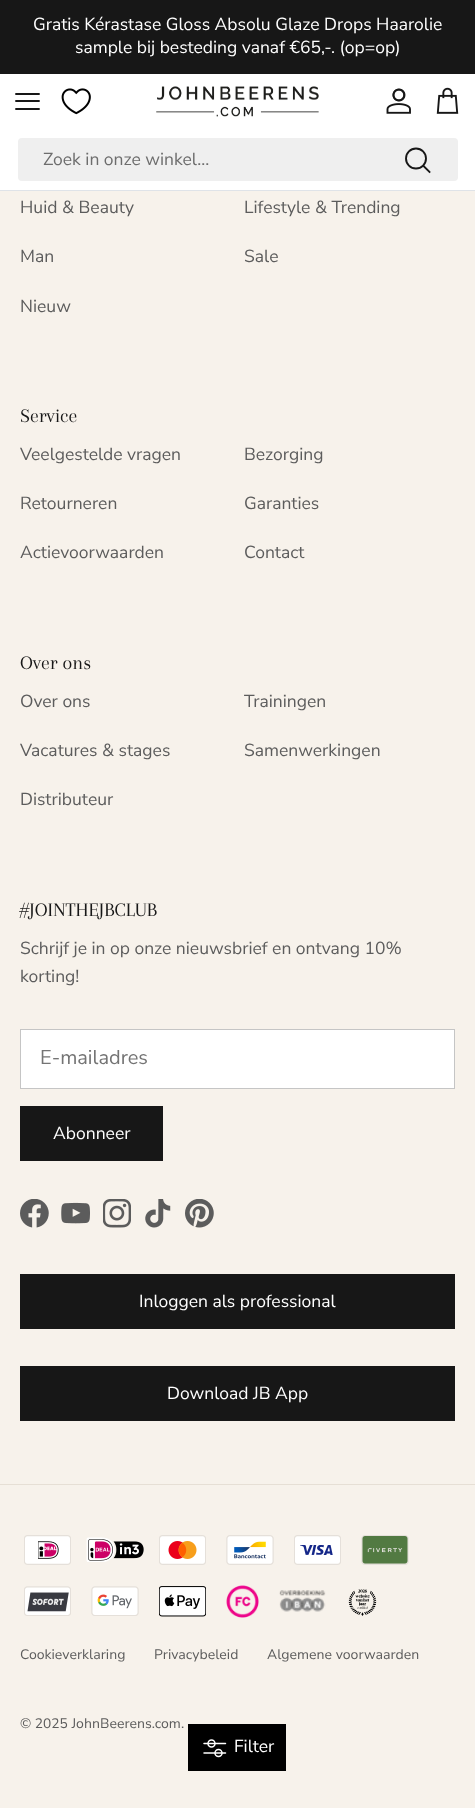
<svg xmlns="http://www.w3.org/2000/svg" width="475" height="1808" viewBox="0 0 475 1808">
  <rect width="100%" height="100%" fill="#f7f2eb"/>
  <rect x="0" y="0" width="475" height="74" fill="#171717"/>
  <text x="33" y="30" font-family="Nunito Sans" font-size="17.5" fill="#ffffff">Gratis Kérastase Gloss Absolu Glaze Drops Haarolie</text>
  <text x="75" y="53" font-family="Nunito Sans" font-size="17.5" fill="#ffffff">sample bij besteding vanaf €65,-. (op=op)</text>
  <rect x="0" y="74" width="475" height="116" fill="#ffffff"/>
  <path d="M16 101H39M16 94H39M16 109H39" fill="none" stroke="#171717" stroke-width="1.9" stroke-linecap="round" stroke-linejoin="round"/>
  <image x="156" y="86" width="163" height="31" href="img1.png"/>
  <image x="61" y="88" width="30" height="27" href="img2.png"/>
  <image x="386" y="88" width="25" height="26" href="img3.png"/>
  <image x="436" y="87" width="23" height="27" href="img4.png"/>
  <rect x="0" y="190" width="475" height="1" fill="#dfe3e8"/>
  <rect x="18" y="138" width="440" height="43" rx="4" fill="#efefef"/>
  <text x="43" y="165" font-family="Nunito Sans" font-size="17.5" fill="#6d6d6d">Zoek in onze winkel…</text>
  <circle cx="416" cy="158.5" r="10" fill="none" stroke="#171717" stroke-width="1.9"/>
  <path d="M423.5 166L429.5 172" fill="none" stroke="#171717" stroke-width="1.9" stroke-linecap="square"/>
  <text x="20" y="213" font-family="Nunito Sans" font-size="17.5" fill="#5c5c5c">Huid &amp; Beauty</text>
  <text x="244" y="213" font-family="Nunito Sans" font-size="17.5" fill="#5c5c5c">Lifestyle &amp; Trending</text>
  <text x="20" y="262" font-family="Nunito Sans" font-size="17.5" fill="#5c5c5c">Man</text>
  <text x="244" y="262" font-family="Nunito Sans" font-size="17.5" fill="#5c5c5c">Sale</text>
  <text x="20" y="312" font-family="Nunito Sans" font-size="17.5" fill="#5c5c5c">Nieuw</text>
  <text x="20" y="422" font-family="Arapey" font-size="20" fill="#171717">Service</text>
  <text x="20" y="460" font-family="Nunito Sans" font-size="17.5" fill="#5c5c5c">Veelgestelde vragen</text>
  <text x="244" y="460" font-family="Nunito Sans" font-size="17.5" fill="#5c5c5c">Bezorging</text>
  <text x="20" y="509" font-family="Nunito Sans" font-size="17.5" fill="#5c5c5c">Retourneren</text>
  <text x="244" y="509" font-family="Nunito Sans" font-size="17.5" fill="#5c5c5c">Garanties</text>
  <text x="20" y="558" font-family="Nunito Sans" font-size="17.5" fill="#5c5c5c">Actievoorwaarden</text>
  <text x="244" y="558" font-family="Nunito Sans" font-size="17.5" fill="#5c5c5c">Contact</text>
  <text x="20" y="669" font-family="Arapey" font-size="20" fill="#171717">Over ons</text>
  <text x="20" y="707" font-family="Nunito Sans" font-size="17.5" fill="#5c5c5c">Over ons</text>
  <text x="244" y="707" font-family="Nunito Sans" font-size="17.5" fill="#5c5c5c">Trainingen</text>
  <text x="20" y="756" font-family="Nunito Sans" font-size="17.5" fill="#5c5c5c">Vacatures &amp; stages</text>
  <text x="244" y="756" font-family="Nunito Sans" font-size="17.5" fill="#5c5c5c">Samenwerkingen</text>
  <text x="20" y="805" font-family="Nunito Sans" font-size="17.5" fill="#5c5c5c">Distributeur</text>
  <text x="20" y="916" font-family="Arapey" font-size="20" fill="#171717">#JOINTHEJBCLUB</text>
  <text x="20" y="954" font-family="Nunito Sans" font-size="17.5" fill="#5c5c5c">Schrijf je in op onze nieuwsbrief en ontvang 10%</text>
  <text x="20" y="982" font-family="Nunito Sans" font-size="17.5" fill="#5c5c5c">korting!</text>
  <rect x="20.5" y="1029.5" width="434" height="59" fill="#ffffff" stroke="#c5c5c5"/>
  <text x="40" y="1064" font-family="Nunito Sans" font-size="20" fill="#747474">E-mailadres</text>
  <rect x="20" y="1106" width="143" height="55" fill="#171717"/>
  <text x="53" y="1139" font-family="Nunito Sans" font-size="17.5" fill="#ffffff">Abonneer</text>
  <image x="20" y="1199" width="29" height="29" href="img5.png"/>
  <image x="61" y="1202" width="29" height="22" href="img6.png"/>
  <image x="103" y="1199" width="28" height="29" href="img7.png"/>
  <image x="145" y="1199" width="26" height="29" href="img8.png"/>
  <image x="185" y="1199" width="29" height="29" href="img9.png"/>
  <rect x="20" y="1274" width="435" height="55" fill="#171717"/>
  <text x="139" y="1307" font-family="Nunito Sans" font-size="17.5" fill="#ffffff">Inloggen als professional</text>
  <rect x="20" y="1366" width="435" height="55" fill="#171717"/>
  <text x="167" y="1399" font-family="Nunito Sans" font-size="17.5" fill="#ffffff">Download JB App</text>
  <rect x="0" y="1484" width="475" height="1" fill="#e6dfd5"/>
  <image x="24" y="1535" width="47" height="30" href="img10.png"/>
  <image x="86" y="1537" width="58" height="25" href="img11.png"/>
  <image x="159" y="1535" width="47" height="30" href="img12.png"/>
  <image x="226" y="1535" width="48" height="30" href="img13.png"/>
  <image x="294" y="1535" width="47" height="30" href="img14.png"/>
  <image x="361" y="1535" width="48" height="30" href="img15.png"/>
  <image x="24" y="1586" width="47" height="30" href="img16.png"/>
  <image x="91" y="1586" width="48" height="30" href="img17.png"/>
  <image x="159" y="1586" width="47" height="31" href="img18.png"/>
  <image x="226" y="1585" width="33" height="33" href="img19.png"/>
  <image x="279" y="1590" width="47" height="22" href="img20.png"/>
  <image x="348" y="1589" width="29" height="27" href="img21.png"/>
  <text x="20" y="1659" font-family="'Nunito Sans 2'" font-size="13.75" fill="#5c5c5c">Cookieverklaring</text>
  <text x="154" y="1659" font-family="'Nunito Sans 2'" font-size="13.75" fill="#5c5c5c">Privacybeleid</text>
  <text x="267" y="1659" font-family="'Nunito Sans 2'" font-size="13.75" fill="#5c5c5c">Algemene voorwaarden</text>
  <text x="20" y="1728" font-family="'Nunito Sans 2'" font-size="13.75" fill="#5c5c5c">© 2025 JohnBeerens.com.</text>
  <rect x="188" y="1724" width="98" height="47" fill="#000000"/>
  <path d="M204 1743.5H225.5M204 1753H225.5" fill="none" stroke="#ffffff" stroke-width="1.5" stroke-linecap="round" stroke-linejoin="round"/>
  <circle cx="211.5" cy="1743.5" r="3.5" fill="none" stroke="#ffffff" stroke-width="1.5"/>
  <text x="234" y="1752" font-family="Nunito Sans" font-size="17.5" fill="#ffffff">Filter</text>
  <circle cx="218.5" cy="1753" r="3.5" fill="none" stroke="#ffffff" stroke-width="1.5"/>
</svg>
